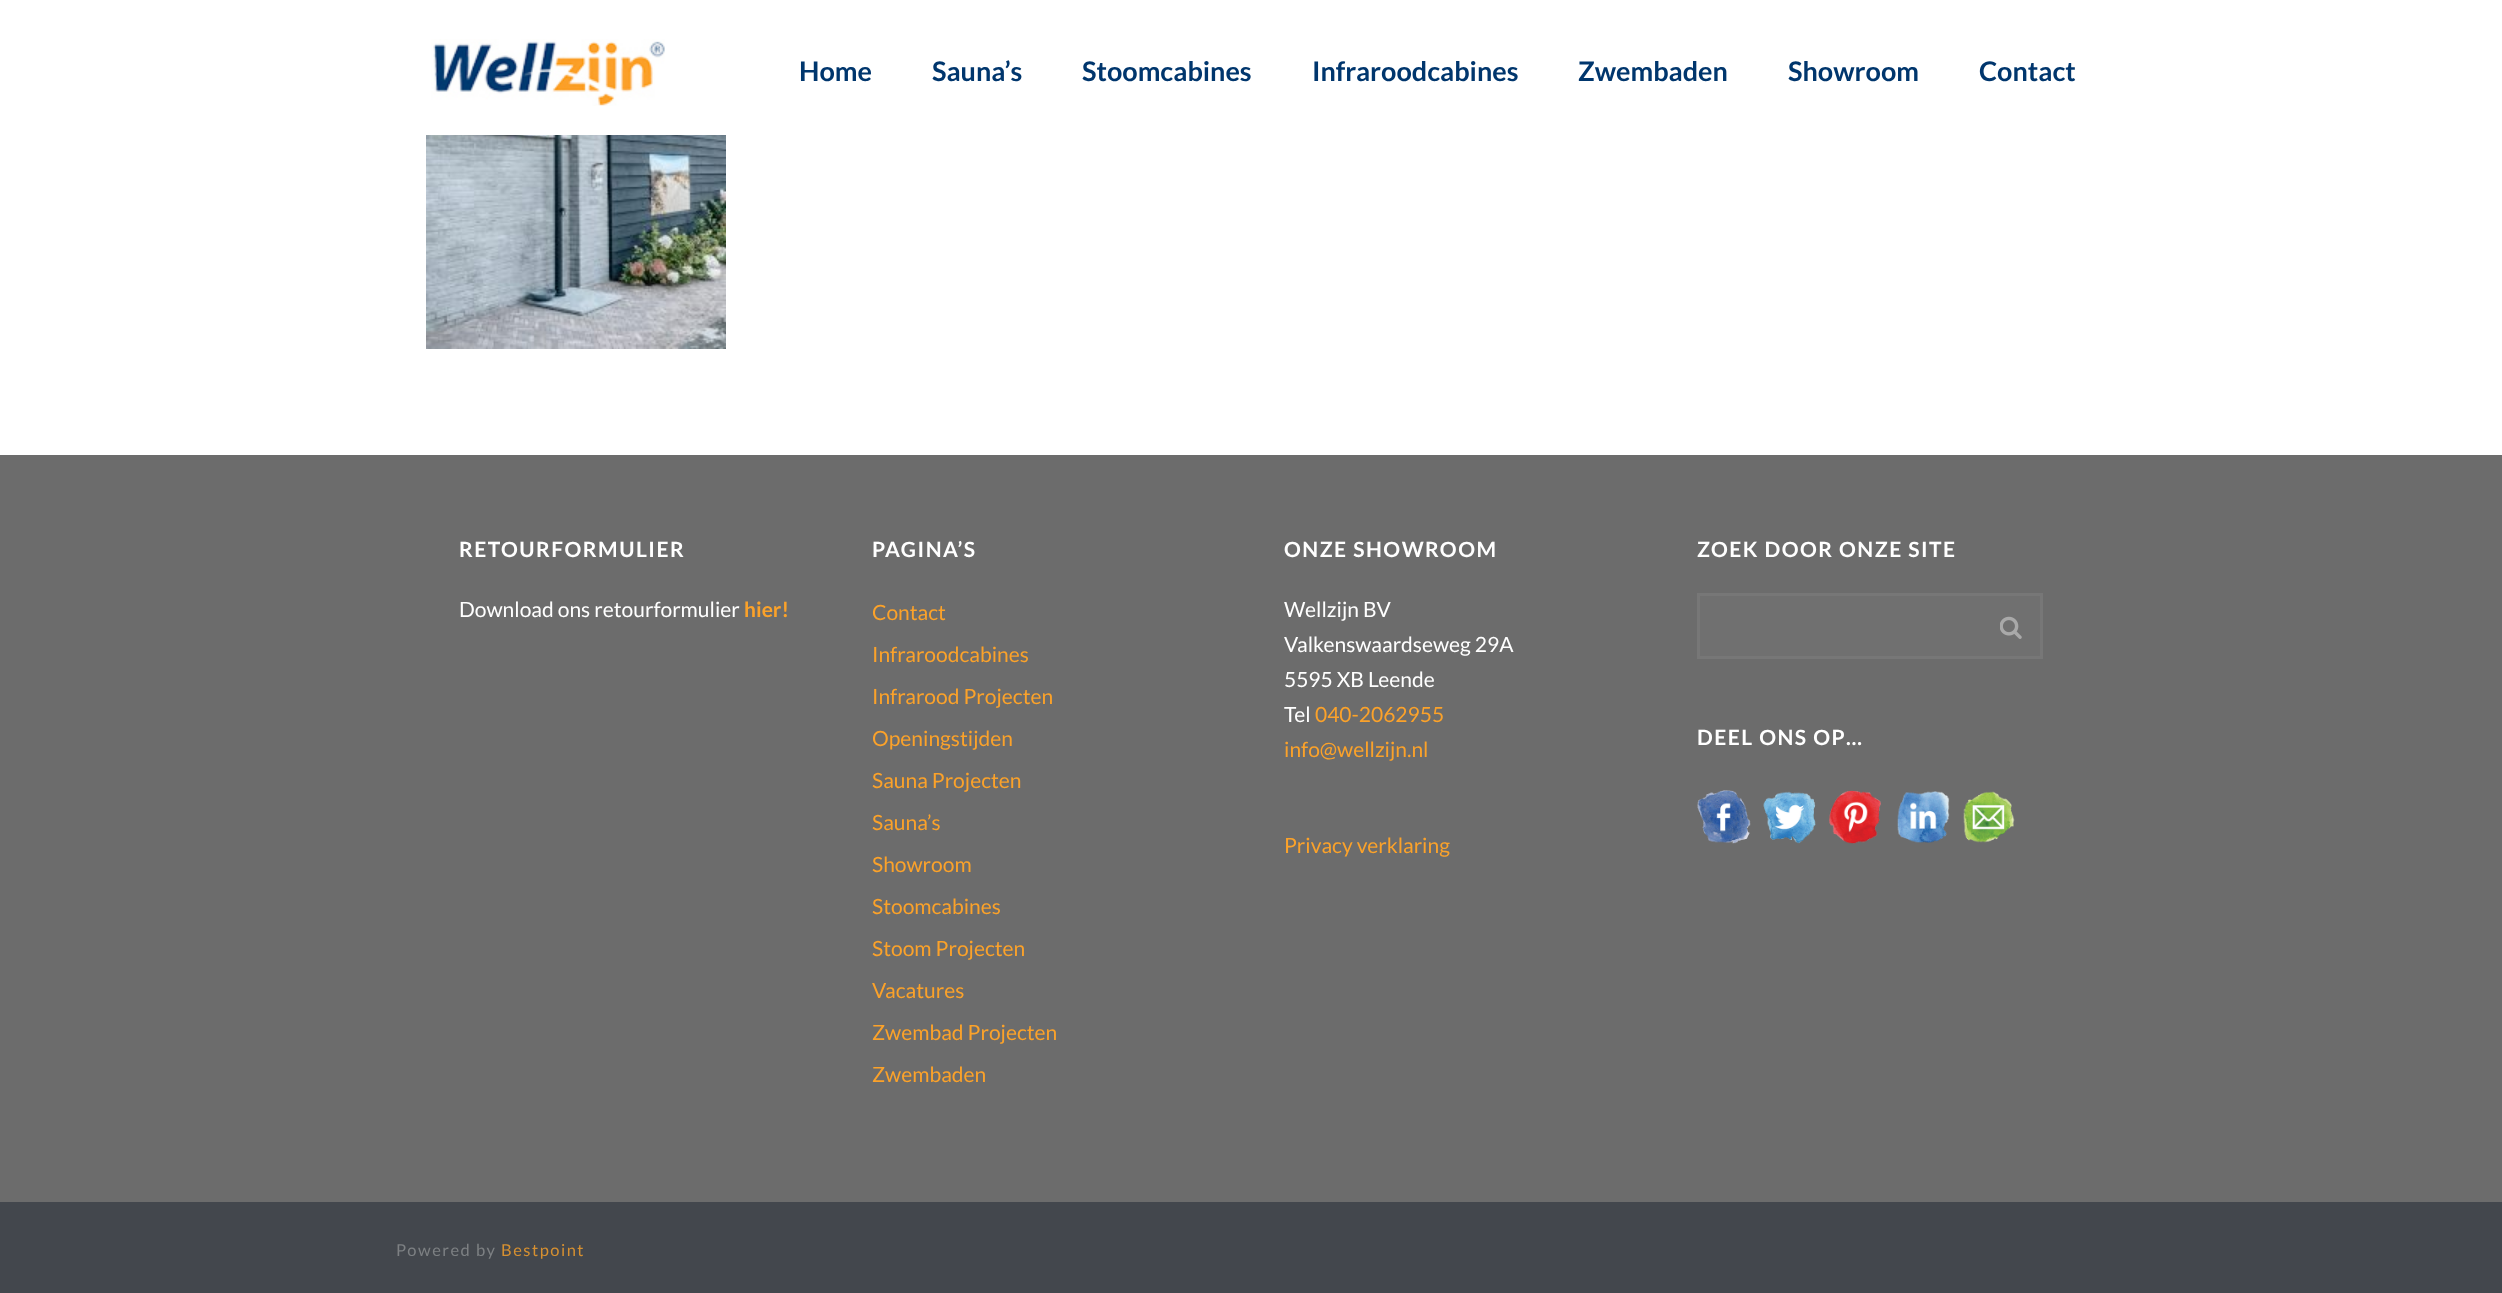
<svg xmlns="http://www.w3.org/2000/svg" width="2502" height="1293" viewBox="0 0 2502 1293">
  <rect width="100%" height="100%" fill="#ffffff"/>
  <image x="431" y="39" width="234" height="67" href="img1.png"/>
  <text x="799" y="81" font-family="Lato" font-size="27" font-weight="bold" fill="#00366d">Home</text>
  <text x="932" y="81" font-family="Lato" font-size="27" font-weight="bold" fill="#00366d">Sauna’s</text>
  <text x="1082" y="81" font-family="Lato" font-size="27" font-weight="bold" fill="#00366d">Stoomcabines</text>
  <text x="1312" y="81" font-family="Lato" font-size="27" font-weight="bold" fill="#00366d">Infraroodcabines</text>
  <text x="1578" y="81" font-family="Lato" font-size="27" font-weight="bold" fill="#00366d">Zwembaden</text>
  <text x="1788" y="81" font-family="Lato" font-size="27" font-weight="bold" fill="#00366d">Showroom</text>
  <text x="1979" y="81" font-family="Lato" font-size="27" font-weight="bold" fill="#00366d">Contact</text>
  <image x="426" y="135" width="300" height="214" href="img2.png"/>
  <rect x="0" y="455" width="2502" height="747" fill="#6c6c6c"/>
  <text x="459" y="557" font-family="Lato" font-size="21" font-weight="bold" letter-spacing="1.5" fill="#ffffff">RETOURFORMULIER</text>
  <text x="459" y="617" font-family="Lato" font-size="21" fill="#ffffff">Download ons retourformulier</text>
  <text x="744" y="617" font-family="Lato" font-size="21" font-weight="bold" fill="#fba22a">hier!</text>
  <text x="872" y="557" font-family="Lato" font-size="21" font-weight="bold" letter-spacing="1.5" fill="#ffffff">PAGINA’S</text>
  <text x="872" y="620" font-family="Lato" font-size="21" fill="#fba22a">Contact</text>
  <text x="872" y="662" font-family="Lato" font-size="21" fill="#fba22a">Infraroodcabines</text>
  <text x="872" y="704" font-family="Lato" font-size="21" fill="#fba22a">Infrarood Projecten</text>
  <text x="872" y="746" font-family="Lato" font-size="21" fill="#fba22a">Openingstijden</text>
  <text x="872" y="788" font-family="Lato" font-size="21" fill="#fba22a">Sauna Projecten</text>
  <text x="872" y="830" font-family="Lato" font-size="21" fill="#fba22a">Sauna’s</text>
  <text x="872" y="872" font-family="Lato" font-size="21" fill="#fba22a">Showroom</text>
  <text x="872" y="914" font-family="Lato" font-size="21" fill="#fba22a">Stoomcabines</text>
  <text x="872" y="956" font-family="Lato" font-size="21" fill="#fba22a">Stoom Projecten</text>
  <text x="872" y="998" font-family="Lato" font-size="21" fill="#fba22a">Vacatures</text>
  <text x="872" y="1040" font-family="Lato" font-size="21" fill="#fba22a">Zwembad Projecten</text>
  <text x="872" y="1082" font-family="Lato" font-size="21" fill="#fba22a">Zwembaden</text>
  <text x="1284" y="557" font-family="Lato" font-size="21" font-weight="bold" letter-spacing="1.5" fill="#ffffff">ONZE SHOWROOM</text>
  <text x="1284" y="617" font-family="Lato" font-size="21" fill="#ffffff">Wellzijn BV</text>
  <text x="1284" y="652" font-family="Lato" font-size="21" fill="#ffffff">Valkenswaardseweg 29A</text>
  <text x="1284" y="687" font-family="Lato" font-size="21" fill="#ffffff">5595 XB Leende</text>
  <text x="1284" y="722" font-family="Lato" font-size="21" fill="#ffffff">Tel</text>
  <text x="1315" y="722" font-family="Lato" font-size="21" fill="#fba22a">040-2062955</text>
  <text x="1284" y="757" font-family="Lato" font-size="21" fill="#fba22a">info@wellzijn.nl</text>
  <text x="1284" y="853" font-family="Lato" font-size="21" fill="#fba22a">Privacy verklaring</text>
  <text x="1697" y="557" font-family="Lato" font-size="21" font-weight="bold" letter-spacing="1.5" fill="#ffffff">ZOEK DOOR ONZE SITE</text>
  <rect x="1698.5" y="594.5" width="343" height="63" fill="#707070" stroke="#777777" stroke-width="3"/>
  <image x="2000" y="616" width="22" height="23" href="img3.png"/>
  <text x="1697" y="745" font-family="Lato" font-size="21" font-weight="bold" letter-spacing="1.5" fill="#ffffff">DEEL ONS OP…</text>
  <image x="1697" y="790" width="54" height="54" href="img4.png"/>
  <image x="1763" y="791" width="53" height="53" href="img5.png"/>
  <image x="1829" y="790" width="52" height="54" href="img6.png"/>
  <image x="1897" y="791" width="53" height="52" href="img7.png"/>
  <image x="1963" y="791" width="52" height="52" href="img8.png"/>
  <rect x="0" y="1202" width="2502" height="91" fill="#43474d"/>
  <text x="396" y="1256" font-family="Lato" font-size="16.5" letter-spacing="1.5" fill="#7d8083">Powered by</text>
  <text x="501" y="1256" font-family="Lato" font-size="16.5" letter-spacing="1.5" fill="#d69031">Bestpoint</text>
</svg>
